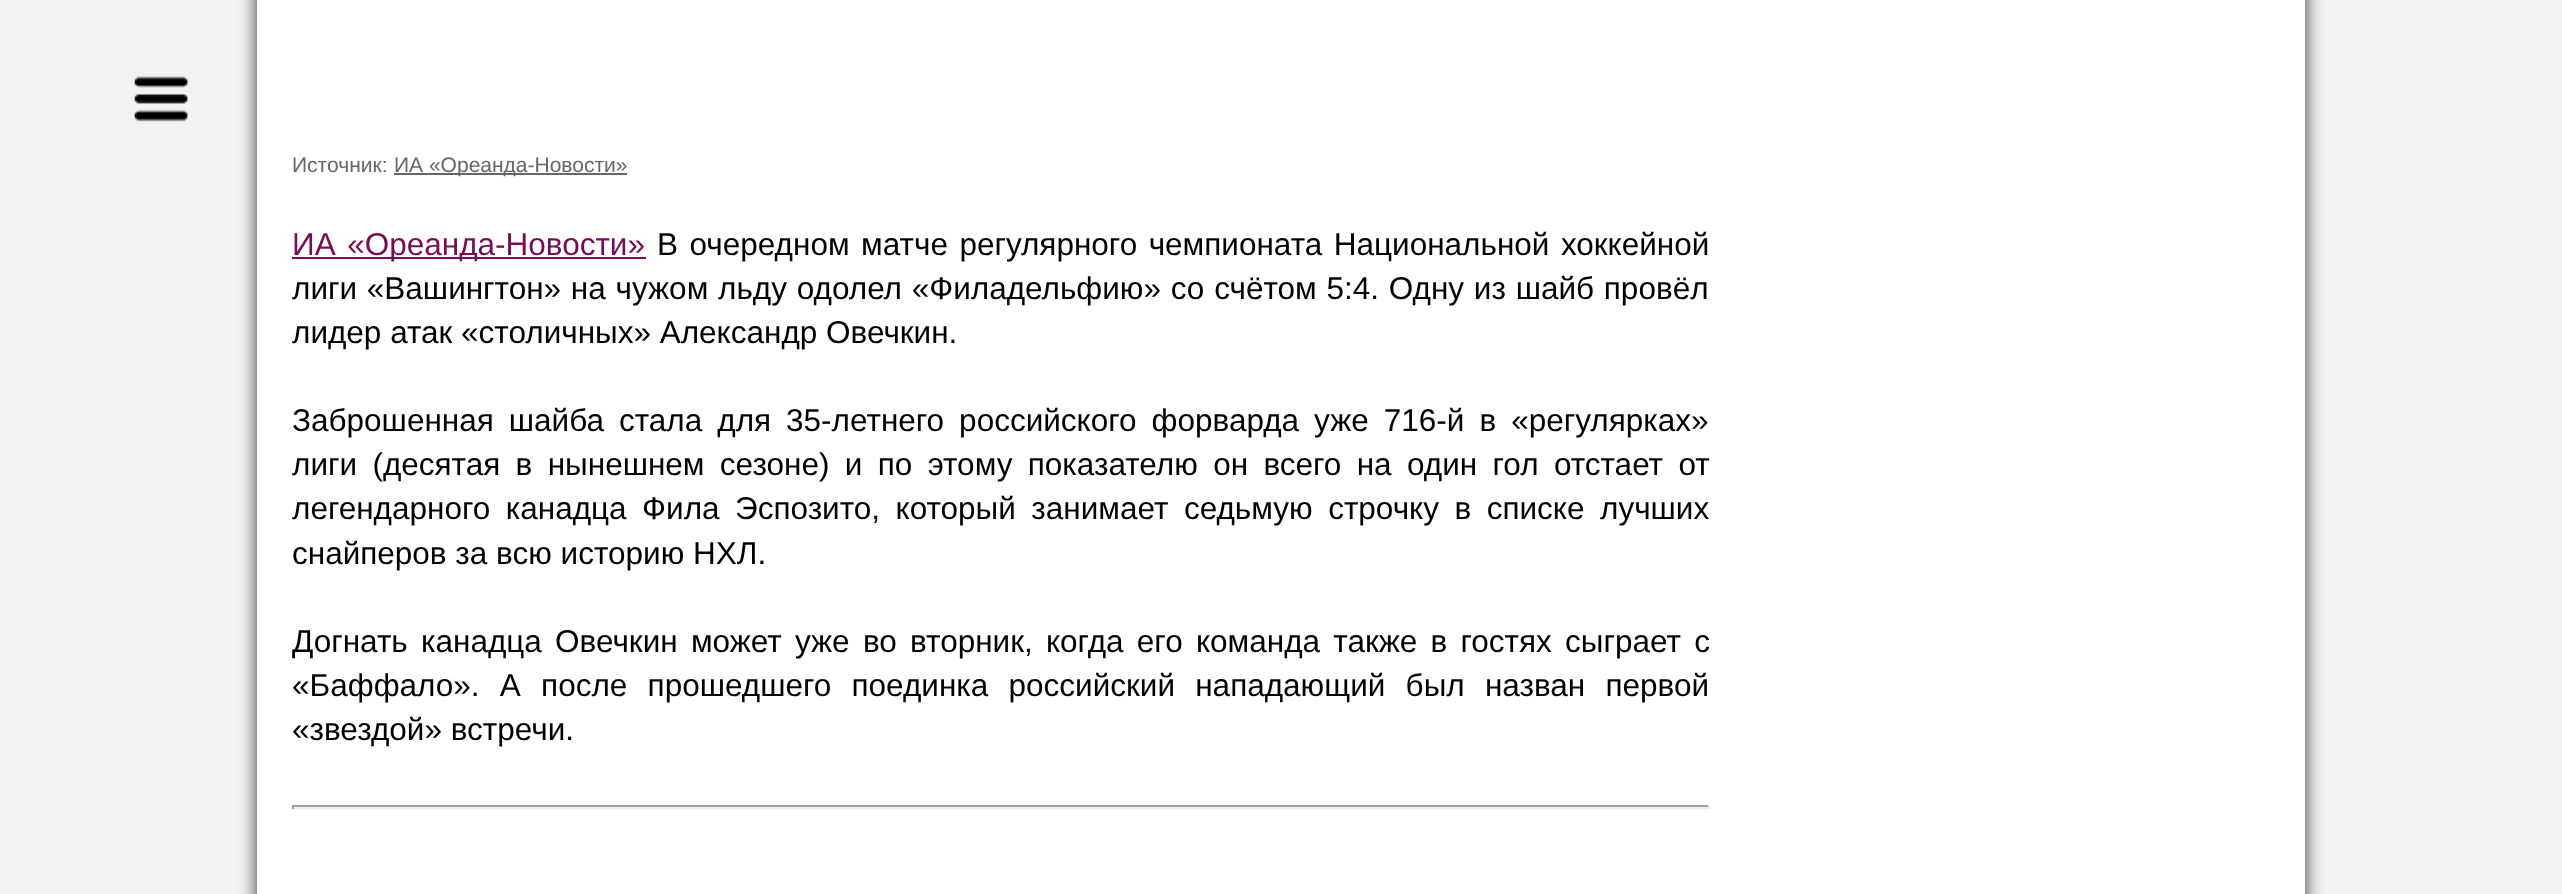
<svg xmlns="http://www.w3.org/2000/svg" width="2562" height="894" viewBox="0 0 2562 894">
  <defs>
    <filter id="blur1" x="-50%" y="-200%" width="200%" height="500%"><feGaussianBlur stdDeviation="9"/></filter>
  </defs>
  <rect width="100%" height="100%" fill="#f2f2f2"/>
  <image x="134" y="76" width="54" height="46" href="img1.png"/>
  <rect x="257" y="-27" width="2048" height="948" fill="#000000" fill-opacity="0.8" filter="url(#blur1)"/>
  <rect x="257" y="0" width="2048" height="894" fill="#ffffff"/>
  <text x="292" y="172" font-family="Liberation Sans" font-size="21" fill="#666666">Источник:</text>
  <rect x="394" y="173" width="233" height="2" fill="#666666"/>
  <text x="394" y="172" font-family="Liberation Sans" font-size="21" fill="#666666">ИА «Ореанда-Новости»</text>
  <rect x="292" y="257" width="354" height="2" fill="#780c56"/>
  <text x="292" y="255" word-spacing="2.75" font-family="Liberation Sans" font-size="31.5" fill="#780c56">ИА «Ореанда-Новости»</text>
  <text x="657" y="255" word-spacing="2.75" font-family="Liberation Sans" font-size="31.5" fill="#000000">В очередном матче регулярного чемпионата Национальной хоккейной</text>
  <text x="292" y="299" word-spacing="1" font-family="Liberation Sans" font-size="31.5" fill="#000000">лиги «Вашингтон» на чужом льду одолел «Филадельфию» со счётом 5:4. Одну из шайб провёл</text>
  <text x="292" y="343" font-family="Liberation Sans" font-size="31.5" fill="#000000">лидер атак «столичных» Александр Овечкин.</text>
  <text x="292" y="431" word-spacing="6.25" font-family="Liberation Sans" font-size="31.5" fill="#000000">Заброшенная шайба стала для 35-летнего российского форварда уже 716-й в «регулярках»</text>
  <text x="292" y="475" word-spacing="6.6" font-family="Liberation Sans" font-size="31.5" fill="#000000">лиги (десятая в нынешнем сезоне) и по этому показателю он всего на один гол отстает от</text>
  <text x="292" y="519" word-spacing="6.75" font-family="Liberation Sans" font-size="31.5" fill="#000000">легендарного канадца Фила Эспозито, который занимает седьмую строчку в списке лучших</text>
  <text x="292" y="564" font-family="Liberation Sans" font-size="31.5" fill="#000000">снайперов за всю историю НХЛ.</text>
  <text x="292" y="652" word-spacing="4.5" font-family="Liberation Sans" font-size="31.5" fill="#000000">Догнать канадца Овечкин может уже во вторник, когда его команда также в гостях сыграет с</text>
  <text x="292" y="696" word-spacing="11.5" font-family="Liberation Sans" font-size="31.5" fill="#000000">«Баффало». А после прошедшего поединка российский нападающий был назван первой</text>
  <text x="292" y="740" font-family="Liberation Sans" font-size="31.5" fill="#000000">«звездой» встречи.</text>
  <rect x="292" y="805" width="1418" height="2" fill="#9f9f9f"/>
  <rect x="1708" y="805" width="2" height="4" fill="#eeeeee"/>
  <rect x="292" y="807" width="1418" height="2" fill="#eeeeee"/>
  <rect x="292" y="805" width="2" height="4" fill="#9f9f9f"/>
</svg>
